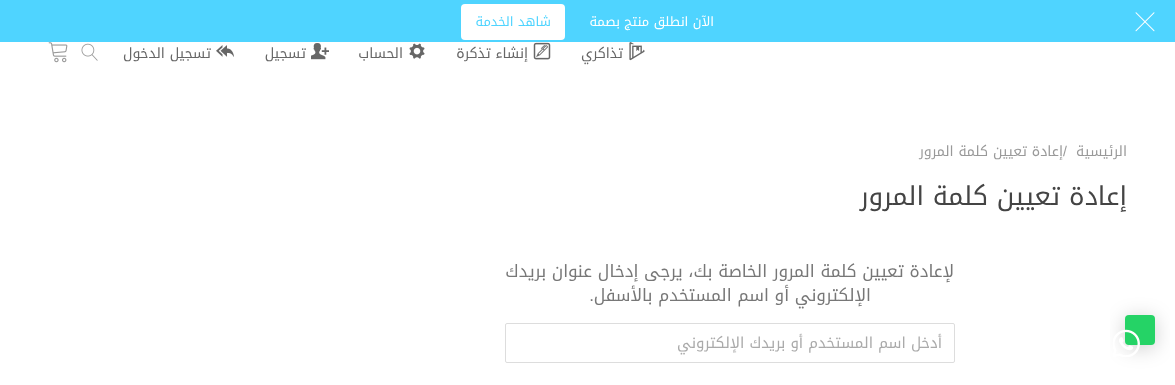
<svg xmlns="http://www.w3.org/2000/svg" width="1175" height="385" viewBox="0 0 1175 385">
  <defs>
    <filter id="blur1" x="-50%" y="-200%" width="200%" height="500%"><feGaussianBlur stdDeviation="10"/></filter>
  </defs>
  <rect width="100%" height="100%" fill="#ffffff"/>
  <rect x="0" y="0" width="1175" height="42" fill="#4fd4ff"/>
  <image x="1135" y="12" width="20" height="20" href="img1.png"/>
  <text x="714" y="26" font-family="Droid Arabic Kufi" font-size="13" direction="rtl" fill="#ffffff">الآن انطلق منتج بصمة</text>
  <rect x="461" y="4" width="104" height="36" rx="4" fill="#ffffff"/>
  <text x="551" y="26" font-family="Droid Arabic Kufi" font-size="13" direction="rtl" fill="#4fd4ff">شاهد الخدمة</text>
  <image x="629" y="42" width="16" height="19" href="img2.png"/>
  <text x="623" y="58" font-family="Droid Arabic Kufi" font-size="14" direction="rtl" fill="#666666">تذاكري</text>
  <image x="533" y="42" width="18" height="18" href="img3.png"/>
  <text x="528" y="58" font-family="Droid Arabic Kufi" font-size="14" direction="rtl" fill="#666666">إنشاء تذكرة</text>
  <image x="409" y="43" width="16" height="16" href="img4.png"/>
  <text x="403" y="58" font-family="Droid Arabic Kufi" font-size="14" direction="rtl" fill="#666666">الحساب</text>
  <image x="311" y="43" width="18" height="17" href="img5.png"/>
  <text x="306" y="58" font-family="Droid Arabic Kufi" font-size="14" direction="rtl" fill="#666666">تسجيل</text>
  <image x="216" y="45" width="18" height="12" href="img6.png"/>
  <text x="211" y="58" font-family="Droid Arabic Kufi" font-size="14" direction="rtl" fill="#666666">تسجيل الدخول</text>
  <image x="81" y="43" width="17" height="18" href="img7.png"/>
  <image x="48" y="42" width="20" height="21" href="img8.png"/>
  <rect x="1125" y="318" width="30" height="30" rx="4" fill="#000000" fill-opacity="0.2" filter="url(#blur1)"/>
  <rect x="1125" y="315" width="30" height="30" rx="4" fill="#25d366"/>
  <image x="1113" y="329" width="27" height="28" href="img9.png"/>
  <text x="1127" y="156" font-family="Droid Arabic Kufi" font-size="14" direction="rtl" fill="#999999">الرئيسية</text>
  <text x="1063" y="156" font-family="Liberation Sans" font-size="14" fill="#999999">/</text>
  <text x="1063" y="156" font-family="Droid Arabic Kufi" font-size="14" direction="rtl" fill="#999999">إعادة تعيين كلمة المرور</text>
  <text x="1127" y="205" font-family="Droid Arabic Kufi" font-size="26" direction="rtl" fill="#444444">إعادة تعيين كلمة المرور</text>
  <text x="954" y="277" font-family="Droid Arabic Kufi" font-size="17" direction="rtl" fill="#777777">لإعادة تعيين كلمة المرور الخاصة بك، يرجى إدخال عنوان بريدك</text>
  <text x="871" y="301" font-family="Droid Arabic Kufi" font-size="17" direction="rtl" fill="#777777">الإلكتروني أو اسم المستخدم بالأسفل</text>
  <text x="594" y="301" font-family="Liberation Sans" font-size="17" direction="rtl" fill="#777777">.</text>
  <rect x="505.5" y="323.5" width="449" height="39" rx="1.5" fill="none" stroke="#dddddd"/>
  <text x="942" y="348" font-family="Droid Arabic Kufi" font-size="15" direction="rtl" fill="#aaaaaa">أدخل اسم المستخدم أو بريدك الإلكتروني</text>
</svg>
